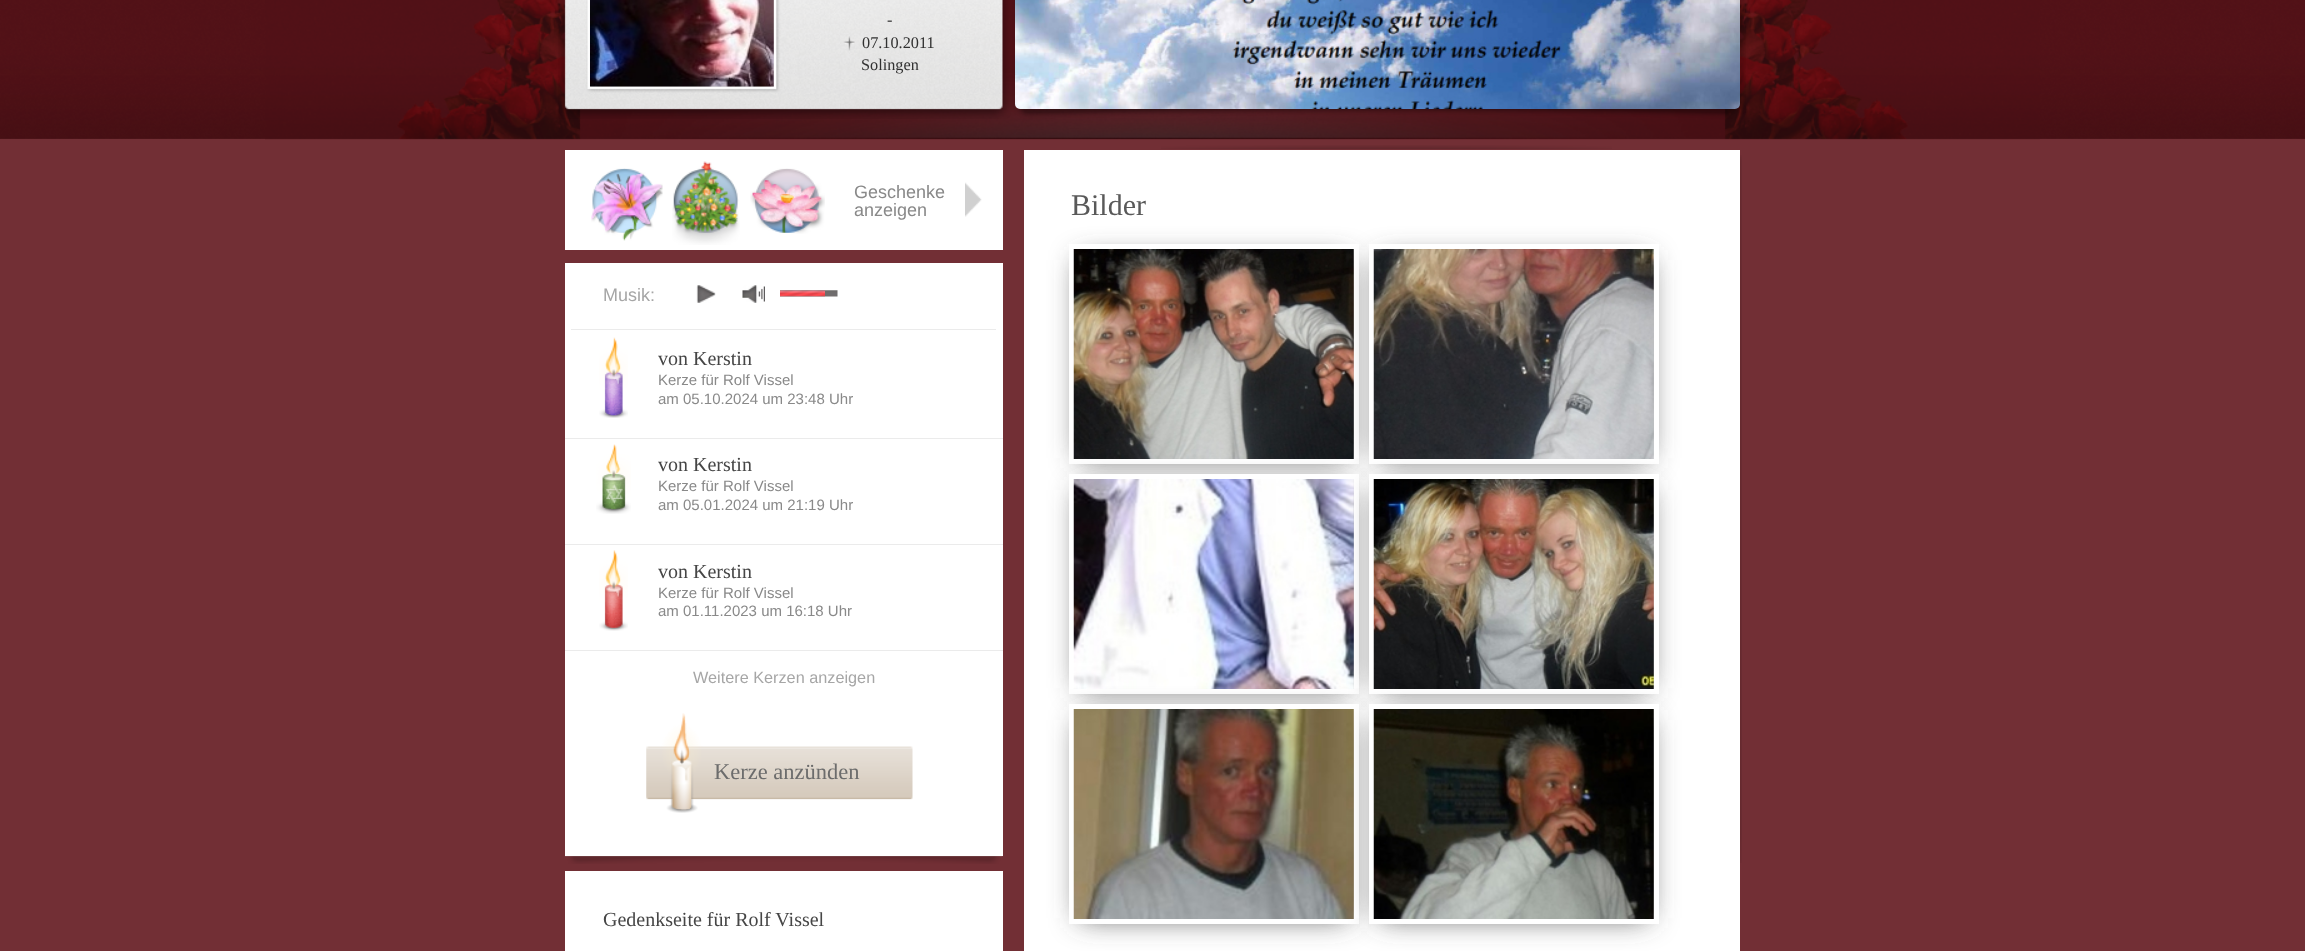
<svg xmlns="http://www.w3.org/2000/svg" width="2305" height="951" viewBox="0 0 2305 951">
  <defs>
    <filter id="blur1" x="-50%" y="-200%" width="200%" height="500%"><feGaussianBlur stdDeviation="14.5"/></filter>
  </defs>
  <rect width="100%" height="100%" fill="#722f35"/>
  <image x="0" y="0" width="2305" height="139" href="img1.png"/>
  <image x="265" y="0" width="1775" height="140" href="img2.png"/>
  <image x="558" y="0" width="1188" height="119" href="img3.png"/>
  <image x="590" y="0" width="184" height="87" href="img4.png"/>
  <text x="887" y="25" font-family="Liberation Serif" font-size="16.25" fill="#313131">-</text>
  <image x="843" y="36" width="12" height="15" href="img5.png"/>
  <text x="862" y="48" font-family="Liberation Serif" font-size="16.25" fill="#313131">07.10.2011</text>
  <text x="861" y="70" font-family="Liberation Serif" font-size="16.25" fill="#313131">Solingen</text>
  <image x="1015" y="0" width="725" height="109" href="img6.png"/>
  <rect x="565" y="150" width="438" height="100" fill="#ffffff"/>
  <image x="591" y="168" width="72" height="73" href="img7.png"/>
  <image x="672" y="161" width="68" height="84" href="img8.png"/>
  <image x="750" y="168" width="75" height="66" href="img9.png"/>
  <image x="965" y="182" width="17" height="35" href="img10.png"/>
  <text x="854" y="198" font-family="Liberation Sans" font-size="18" fill="#898989">Geschenke</text>
  <text x="854" y="216" font-family="Liberation Sans" font-size="18" fill="#898989">anzeigen</text>
  <rect x="1024" y="150" width="716" height="801" fill="#ffffff"/>
  <image x="1161" y="145" width="451" height="4" href="img11.png"/>
  <rect x="1080" y="260" width="268" height="198" fill="#515151" filter="url(#blur1)"/>
  <text x="1071" y="215" font-family="Liberation Serif" font-size="30" fill="#595959">Bilder</text>
  <image x="1740" y="155" width="2" height="708" href="img12.png"/>
  <rect x="1071.5" y="246.5" width="285" height="215" fill="none" stroke="#ffffff" stroke-width="5"/>
  <image x="1073" y="249" width="281" height="210" href="img13.png"/>
  <rect x="1380" y="260" width="268" height="198" fill="#515151" filter="url(#blur1)"/>
  <rect x="1371.5" y="246.5" width="285" height="215" fill="none" stroke="#ffffff" stroke-width="5"/>
  <image x="1373" y="249" width="281" height="210" href="img14.png"/>
  <rect x="1080" y="490" width="268" height="198" fill="#515151" filter="url(#blur1)"/>
  <rect x="1071.5" y="476.5" width="285" height="215" fill="none" stroke="#ffffff" stroke-width="5"/>
  <image x="1073" y="479" width="281" height="210" href="img15.png"/>
  <rect x="1380" y="490" width="268" height="198" fill="#515151" filter="url(#blur1)"/>
  <rect x="1371.5" y="476.5" width="285" height="215" fill="none" stroke="#ffffff" stroke-width="5"/>
  <image x="1373" y="479" width="281" height="210" href="img16.png"/>
  <rect x="1080" y="720" width="268" height="198" fill="#515151" filter="url(#blur1)"/>
  <rect x="1071.5" y="706.5" width="285" height="215" fill="none" stroke="#ffffff" stroke-width="5"/>
  <image x="1073" y="709" width="281" height="210" href="img17.png"/>
  <rect x="1380" y="720" width="268" height="198" fill="#515151" filter="url(#blur1)"/>
  <rect x="1371.5" y="706.5" width="285" height="215" fill="none" stroke="#ffffff" stroke-width="5"/>
  <image x="1373" y="709" width="281" height="210" href="img18.png"/>
  <rect x="565" y="263" width="438" height="593" fill="#ffffff"/>
  <rect x="571" y="329" width="425" height="1" fill="#ebebeb"/>
  <text x="603" y="301" font-family="Liberation Sans" font-size="18" fill="#a6a6a6">Musik:</text>
  <image x="696" y="285" width="20" height="18" href="img19.png"/>
  <image x="742" y="285" width="23" height="18" href="img20.png"/>
  <image x="780" y="290" width="58" height="7" href="img21.png"/>
  <image x="780" y="290" width="45" height="7" href="img22.png"/>
  <rect x="565" y="438" width="438" height="1" fill="#ebebeb"/>
  <image x="599" y="337" width="29" height="81" href="img23.png"/>
  <text x="658" y="365" font-family="Liberation Serif" font-size="20" fill="#464646">von Kerstin</text>
  <text x="658" y="385" font-family="Liberation Sans" font-size="15" fill="#898989">Kerze für Rolf Vissel</text>
  <text x="658" y="404" font-family="Liberation Sans" font-size="15" fill="#898989">am 05.10.2024 um 23:48 Uhr</text>
  <rect x="565" y="544" width="438" height="1" fill="#ebebeb"/>
  <image x="596" y="444" width="35" height="70" href="img24.png"/>
  <text x="658" y="471" font-family="Liberation Serif" font-size="20" fill="#464646">von Kerstin</text>
  <text x="658" y="491" font-family="Liberation Sans" font-size="15" fill="#898989">Kerze für Rolf Vissel</text>
  <text x="658" y="510" font-family="Liberation Sans" font-size="15" fill="#898989">am 05.01.2024 um 21:19 Uhr</text>
  <rect x="565" y="650" width="438" height="1" fill="#ebebeb"/>
  <image x="599" y="550" width="29" height="81" href="img25.png"/>
  <text x="658" y="578" font-family="Liberation Serif" font-size="20" fill="#464646">von Kerstin</text>
  <text x="658" y="598" font-family="Liberation Sans" font-size="15" fill="#898989">Kerze für Rolf Vissel</text>
  <text x="658" y="616" font-family="Liberation Sans" font-size="15" fill="#898989">am 01.11.2023 um 16:18 Uhr</text>
  <text x="693" y="683" font-family="Liberation Sans" font-size="16.25" fill="#a6a6a6">Weitere Kerzen anzeigen</text>
  <image x="646" y="713" width="267" height="100" href="img26.png"/>
  <text x="714" y="779" font-family="Liberation Serif" font-size="22.5" fill="#6c6c6c">Kerze anzünden</text>
  <image x="565" y="856" width="438" height="8" href="img27.png"/>
  <rect x="565" y="871" width="438" height="80" fill="#ffffff"/>
  <text x="603" y="926" font-family="Liberation Serif" font-size="20" fill="#464646">Gedenkseite für Rolf Vissel</text>
</svg>
